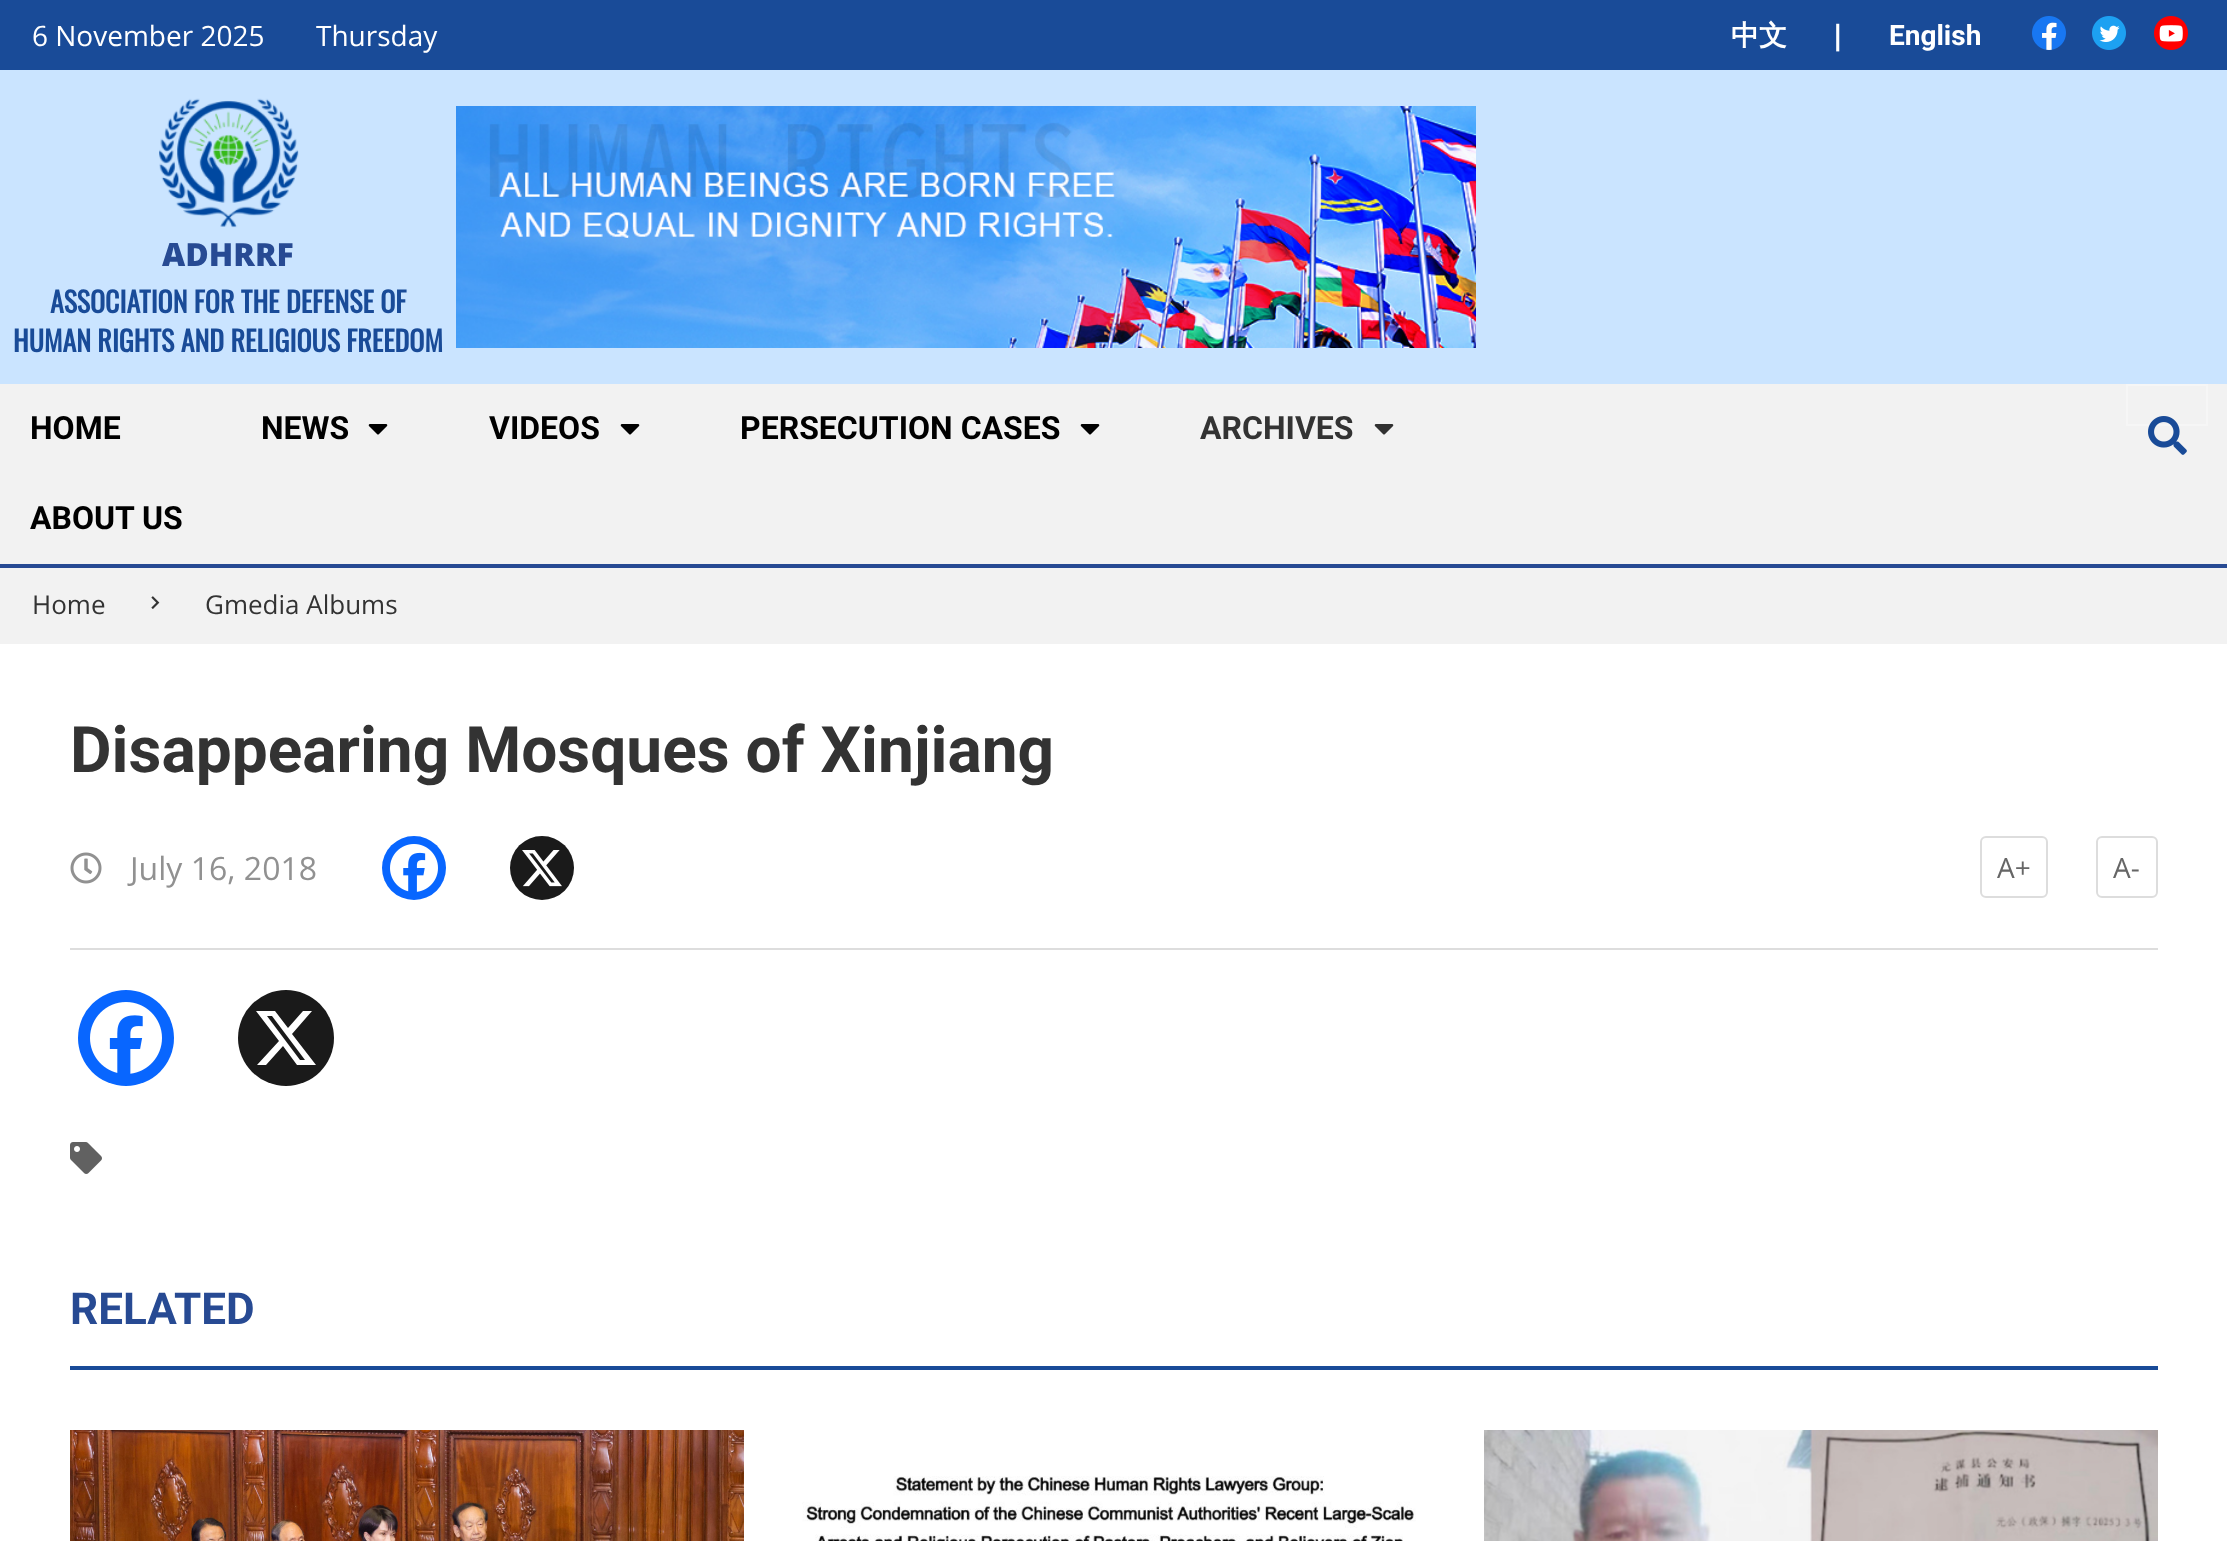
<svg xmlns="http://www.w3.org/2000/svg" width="2227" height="1541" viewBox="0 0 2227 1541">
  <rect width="100%" height="100%" fill="#ffffff"/>
  <rect x="0" y="0" width="2227" height="70" fill="#194b98"/>
  <text x="32" y="46" font-family="Open Sans" font-size="28" fill="#ffffff">6 November 2025</text>
  <text x="316" y="46" font-family="Open Sans" font-size="28" fill="#ffffff">Thursday</text>
  <text x="1731" y="45" font-family="WenQuanYi Zen Hei" font-size="28" font-weight="bold" fill="#ffffff">中文</text>
  <text x="1830" y="45" font-family="Open Sans" font-size="28" font-weight="bold" fill="#ffffff">|</text>
  <text x="1889" y="45" font-family="Roboto" font-size="28" font-weight="bold" fill="#ffffff">English</text>
  <image x="2032" y="16" width="34" height="34" href="img1.png"/>
  <image x="2092" y="16" width="34" height="34" href="img2.png"/>
  <image x="2154" y="16" width="34" height="34" href="img3.png"/>
  <rect x="0" y="70" width="2227" height="314" fill="#cae4ff"/>
  <image x="159" y="98" width="140" height="130" href="img4.png"/>
  <text x="162" y="266" font-family="Open Sans" font-size="32" font-weight="800" fill="#274a93">ADHRRF</text>
  <text x="50" y="313" font-family="Oswald" font-size="28" font-weight="bold" fill="#194b98">ASSOCIATION FOR THE DEFENSE OF</text>
  <text x="13" y="352" font-family="Oswald" font-size="28" font-weight="bold" fill="#194b98">HUMAN RIGHTS AND RELIGIOUS FREEDOM</text>
  <image x="456" y="106" width="1020" height="242" href="img5.png"/>
  <rect x="0" y="564" width="2227" height="4" fill="#274a93"/>
  <rect x="0" y="384" width="2227" height="180" fill="#f2f2f2"/>
  <text x="30" y="439" font-family="Roboto" font-size="32" font-weight="bold" fill="#000000">HOME</text>
  <text x="261" y="439" font-family="Roboto" font-size="32" font-weight="bold" fill="#000000">NEWS</text>
  <image x="368" y="424" width="20" height="11" href="img6.png"/>
  <text x="489" y="439" font-family="Roboto" font-size="32" font-weight="bold" fill="#000000">VIDEOS</text>
  <image x="620" y="424" width="20" height="11" href="img6.png"/>
  <text x="740" y="439" font-family="Roboto" font-size="32" font-weight="bold" fill="#000000">PERSECUTION CASES</text>
  <image x="1080" y="424" width="20" height="11" href="img6.png"/>
  <text x="1200" y="439" font-family="Roboto" font-size="32" font-weight="bold" fill="#333333">ARCHIVES</text>
  <image x="1374" y="424" width="20" height="11" href="img7.png"/>
  <text x="30" y="529" font-family="Roboto" font-size="32" font-weight="bold" fill="#000000">ABOUT US</text>
  <rect x="2127" y="385" width="80" height="40" fill="none" stroke="#f6f6f6" stroke-width="2"/>
  <image x="2148" y="416" width="39" height="39" href="img8.png"/>
  <rect x="0" y="568" width="2227" height="76" fill="#f2f2f2"/>
  <text x="32" y="614" font-family="Open Sans" font-size="26" fill="#333333">Home</text>
  <image x="151" y="596" width="9" height="13" href="img9.png"/>
  <text x="205" y="614" font-family="Open Sans" font-size="26" fill="#333333">Gmedia Albums</text>
  <rect x="70" y="948" width="2088" height="2" fill="#dddddd"/>
  <text x="70" y="772" font-family="Roboto" font-size="64" font-weight="bold" fill="#333333">Disappearing Mosques of Xinjiang</text>
  <image x="70" y="852" width="32" height="32" href="img10.png"/>
  <text x="130" y="880" font-family="Open Sans" font-size="32" fill="#919191">July 16, 2018</text>
  <circle cx="414" cy="868" r="32" fill="#0866ff"/>
  <image x="390" y="844" width="48" height="48" href="img11.png"/>
  <circle cx="542" cy="868" r="32" fill="#1a1a1a"/>
  <image x="522" y="850" width="40" height="37" href="img12.png"/>
  <rect x="1981" y="837" width="66" height="60" rx="5" fill="none" stroke="#dddddd" stroke-width="2"/>
  <text x="1997" y="878" font-family="Open Sans" font-size="28" fill="#666666">A+</text>
  <rect x="2097" y="837" width="60" height="60" rx="5" fill="none" stroke="#dddddd" stroke-width="2"/>
  <text x="2113" y="878" font-family="Open Sans" font-size="28" fill="#666666">A-</text>
  <circle cx="126" cy="1038" r="48" fill="#0866ff"/>
  <image x="90" y="1002" width="72" height="72" href="img13.png"/>
  <circle cx="286" cy="1038" r="48" fill="#1a1a1a"/>
  <path d="M303 1011H312L292 1034L316 1065H297L283 1046L266 1065H257L279 1041L256 1011H275L288 1028ZM300 1060H305L272 1016H267Z" fill="#ffffff"/>
  <image x="70" y="1142" width="32" height="32" href="img14.png"/>
  <rect x="70" y="1366" width="2088" height="4" fill="#194b98"/>
  <text x="70" y="1324" font-family="Roboto" font-size="44" font-weight="bold" fill="#274a93">RELATED</text>
  <image x="70" y="1430" width="674" height="111" href="img15.png"/>
  <image x="802" y="1476" width="614" height="65" href="img16.png"/>
  <image x="1484" y="1430" width="674" height="111" href="img17.png"/>
</svg>
